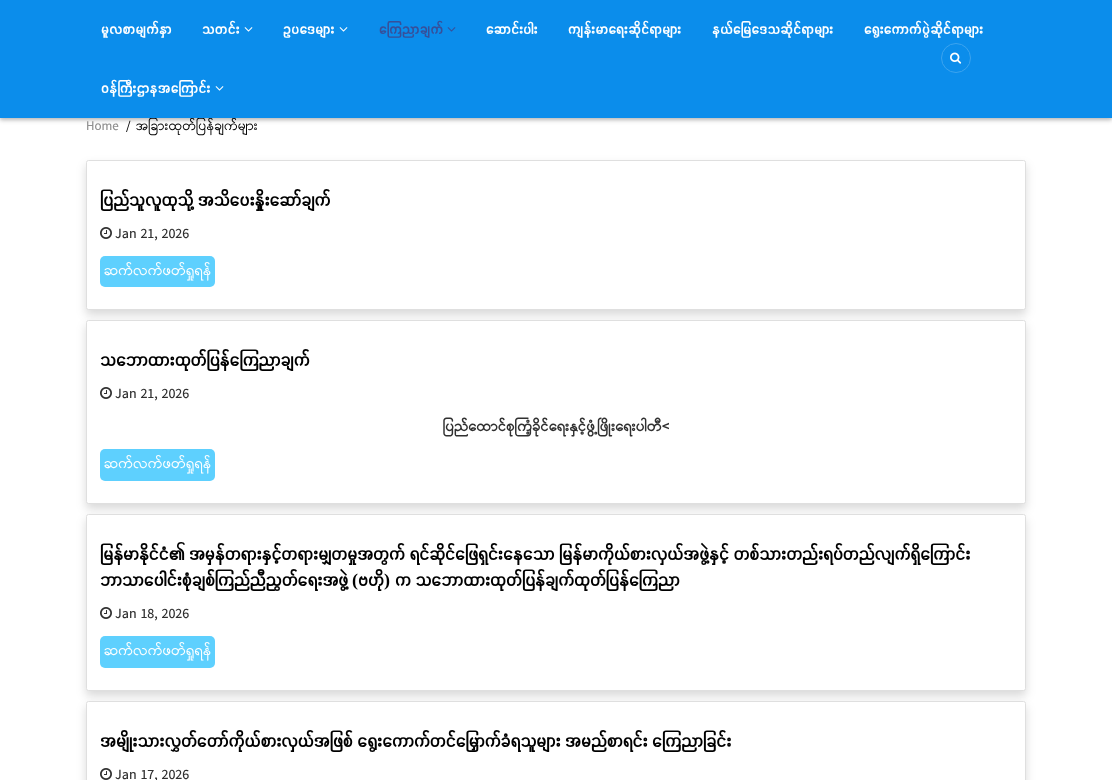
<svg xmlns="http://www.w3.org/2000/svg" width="1112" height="780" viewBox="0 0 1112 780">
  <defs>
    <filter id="blur1" x="-50%" y="-200%" width="200%" height="500%"><feGaussianBlur stdDeviation="2.5"/></filter>
    <filter id="blur2" x="-50%" y="-200%" width="200%" height="500%"><feGaussianBlur stdDeviation="1.5"/></filter>
    <filter id="blur3" x="-50%" y="-200%" width="200%" height="500%"><feGaussianBlur stdDeviation="5"/></filter>
  </defs>
  <rect width="100%" height="100%" fill="#ffffff"/>
  <rect x="0" y="2" width="1112" height="118" fill="#000000" fill-opacity="0.2" filter="url(#blur1)"/>
  <rect x="0" y="2" width="1112" height="118" fill="#000000" fill-opacity="0.1" filter="url(#blur2)"/>
  <text x="136" y="130" font-family="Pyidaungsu" font-size="13" fill="#000000">အခြားထုတ်ပြန်ချက်များ</text>
  <rect x="0" y="0" width="1112" height="118" fill="#0b8deb"/>
  <text x="101" y="34" font-family="Myanmar Sans Pro" font-size="14" font-weight="bold" letter-spacing="0.5" fill="#ffffff">မူလစာမျက်နှာ</text>
  <text x="202" y="34" font-family="Myanmar Sans Pro" font-size="14" font-weight="bold" letter-spacing="0.5" fill="#ffffff">သတင်း</text>
  <image x="244" y="27" width="9" height="5" href="img1.png"/>
  <text x="283" y="34" font-family="Myanmar Sans Pro" font-size="14" font-weight="bold" letter-spacing="0.5" fill="#ffffff">ဥပဒေများ</text>
  <image x="339" y="27" width="9" height="5" href="img1.png"/>
  <text x="379" y="34" font-family="Myanmar Sans Pro" font-size="14" font-weight="bold" letter-spacing="0.5" fill="#374f99">ကြေညာချက်</text>
  <image x="447" y="27" width="9" height="5" href="img2.png"/>
  <text x="486" y="34" font-family="Myanmar Sans Pro" font-size="14" font-weight="bold" letter-spacing="0.5" fill="#ffffff">ဆောင်းပါး</text>
  <text x="568" y="34" font-family="Myanmar Sans Pro" font-size="14" font-weight="bold" letter-spacing="0.5" fill="#ffffff">ကျန်းမာရေးဆိုင်ရာများ</text>
  <text x="712" y="34" font-family="Myanmar Sans Pro" font-size="14" font-weight="bold" letter-spacing="0.5" fill="#ffffff">နယ်မြေဒေသဆိုင်ရာများ</text>
  <text x="864" y="34" font-family="Myanmar Sans Pro" font-size="14" font-weight="bold" letter-spacing="0.5" fill="#ffffff">ရွေးကောက်ပွဲဆိုင်ရာများ</text>
  <text x="101" y="93" font-family="Myanmar Sans Pro" font-size="14" font-weight="bold" letter-spacing="0.5" fill="#ffffff">ဝန်ကြီးဌာနအကြောင်း</text>
  <image x="215" y="86" width="9" height="5" href="img1.png"/>
  <circle cx="956" cy="58" r="14.5" fill="none" stroke="#3ca4ef"/>
  <image x="950" y="52" width="12" height="12" href="img3.png"/>
  <text x="86" y="130" font-family="Pyidaungsu" font-size="13" fill="#909090">Home</text>
  <text x="126" y="130" font-family="Pyidaungsu" font-size="13" fill="#000000">/</text>
  <rect x="86" y="165" width="940" height="150" rx="2.5" fill="#000000" fill-opacity="0.15" filter="url(#blur3)"/>
  <rect x="86.5" y="160.5" width="939" height="149" rx="2" fill="#ffffff" stroke="#dfdfdf"/>
  <text x="100" y="206" font-family="Myanmar Sans Pro" font-size="18" font-weight="bold" fill="#000000">ပြည်သူလူထုသို့ အသိပေးနှိုးဆော်ချက်</text>
  <image x="100" y="227" width="12" height="12" href="img4.png"/>
  <text x="115" y="238" font-family="Pyidaungsu" font-size="14" fill="#303030">Jan 21, 2026</text>
  <rect x="100" y="256" width="115" height="31" rx="5" fill="#5ed0fe"/>
  <text x="104" y="275" font-family="Pyidaungsu" font-size="14" fill="#ffffff">ဆက်လက်ဖတ်ရှုရန်</text>
  <rect x="86" y="325" width="940" height="184" rx="2.5" fill="#000000" fill-opacity="0.15" filter="url(#blur3)"/>
  <rect x="86.5" y="320.5" width="939" height="183" rx="2" fill="#ffffff" stroke="#dfdfdf"/>
  <text x="100" y="366" font-family="Myanmar Sans Pro" font-size="18" font-weight="bold" fill="#000000">သဘောထားထုတ်ပြန်ကြေညာချက်</text>
  <image x="100" y="387" width="12" height="12" href="img4.png"/>
  <text x="115" y="398" font-family="Pyidaungsu" font-size="14" fill="#303030">Jan 21, 2026</text>
  <text x="443" y="431" font-family="Pyidaungsu" font-size="14" font-weight="bold" fill="#303030">ပြည်ထောင်စုကြံ့ခိုင်ရေးနှင့်ဖွံ့ဖြိုးရေးပါတီ&lt;</text>
  <rect x="100" y="449" width="115" height="32" rx="5" fill="#5ed0fe"/>
  <text x="104" y="468" font-family="Pyidaungsu" font-size="14" fill="#ffffff">ဆက်လက်ဖတ်ရှုရန်</text>
  <rect x="86" y="519" width="940" height="177" rx="2.5" fill="#000000" fill-opacity="0.15" filter="url(#blur3)"/>
  <rect x="86.5" y="514.5" width="939" height="176" rx="2" fill="#ffffff" stroke="#dfdfdf"/>
  <text x="100" y="560" font-family="Myanmar Sans Pro" font-size="18" font-weight="bold" fill="#000000">မြန်မာနိုင်ငံ၏ အမှန်တရားနှင့်တရားမျှတမှုအတွက် ရင်ဆိုင်ဖြေရှင်းနေသော မြန်မာကိုယ်စားလှယ်အဖွဲ့နှင့် တစ်သားတည်းရပ်တည်လျက်ရှိကြောင်း</text>
  <text x="100" y="586" font-family="Myanmar Sans Pro" font-size="18" font-weight="bold" fill="#000000">ဘာသာပေါင်းစုံချစ်ကြည်ညီညွတ်ရေးအဖွဲ့</text>
  <text x="352" y="586" font-family="Liberation Serif" font-size="18" font-weight="bold" fill="#000000">(</text>
  <text x="358" y="586" font-family="Myanmar Sans Pro" font-size="18" font-weight="bold" fill="#000000">ဗဟို</text>
  <text x="384" y="586" font-family="Liberation Serif" font-size="18" font-weight="bold" fill="#000000">)</text>
  <text x="395" y="586" font-family="Myanmar Sans Pro" font-size="18" font-weight="bold" fill="#000000">က သဘောထားထုတ်ပြန်ချက်ထုတ်ပြန်ကြေညာ</text>
  <image x="100" y="607" width="12" height="12" href="img4.png"/>
  <text x="115" y="618" font-family="Pyidaungsu" font-size="14" fill="#303030">Jan 18, 2026</text>
  <rect x="100" y="636" width="115" height="32" rx="5" fill="#5ed0fe"/>
  <text x="104" y="655" font-family="Pyidaungsu" font-size="14" fill="#ffffff">ဆက်လက်ဖတ်ရှုရန်</text>
  <rect x="86" y="706" width="940" height="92" rx="2.5" fill="#000000" fill-opacity="0.15" filter="url(#blur3)"/>
  <rect x="86.5" y="701.5" width="939" height="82" rx="2" fill="#ffffff" stroke="#dfdfdf"/>
  <text x="100" y="747" font-family="Myanmar Sans Pro" font-size="18" font-weight="bold" fill="#000000">အမျိုးသားလွှတ်တော်ကိုယ်စားလှယ်အဖြစ် ရွေးကောက်တင်မြှောက်ခံရသူများ အမည်စာရင်း ကြေညာခြင်း</text>
  <image x="100" y="768" width="12" height="12" href="img4.png"/>
  <text x="115" y="779" font-family="Pyidaungsu" font-size="14" fill="#303030">Jan 17, 2026</text>
</svg>
